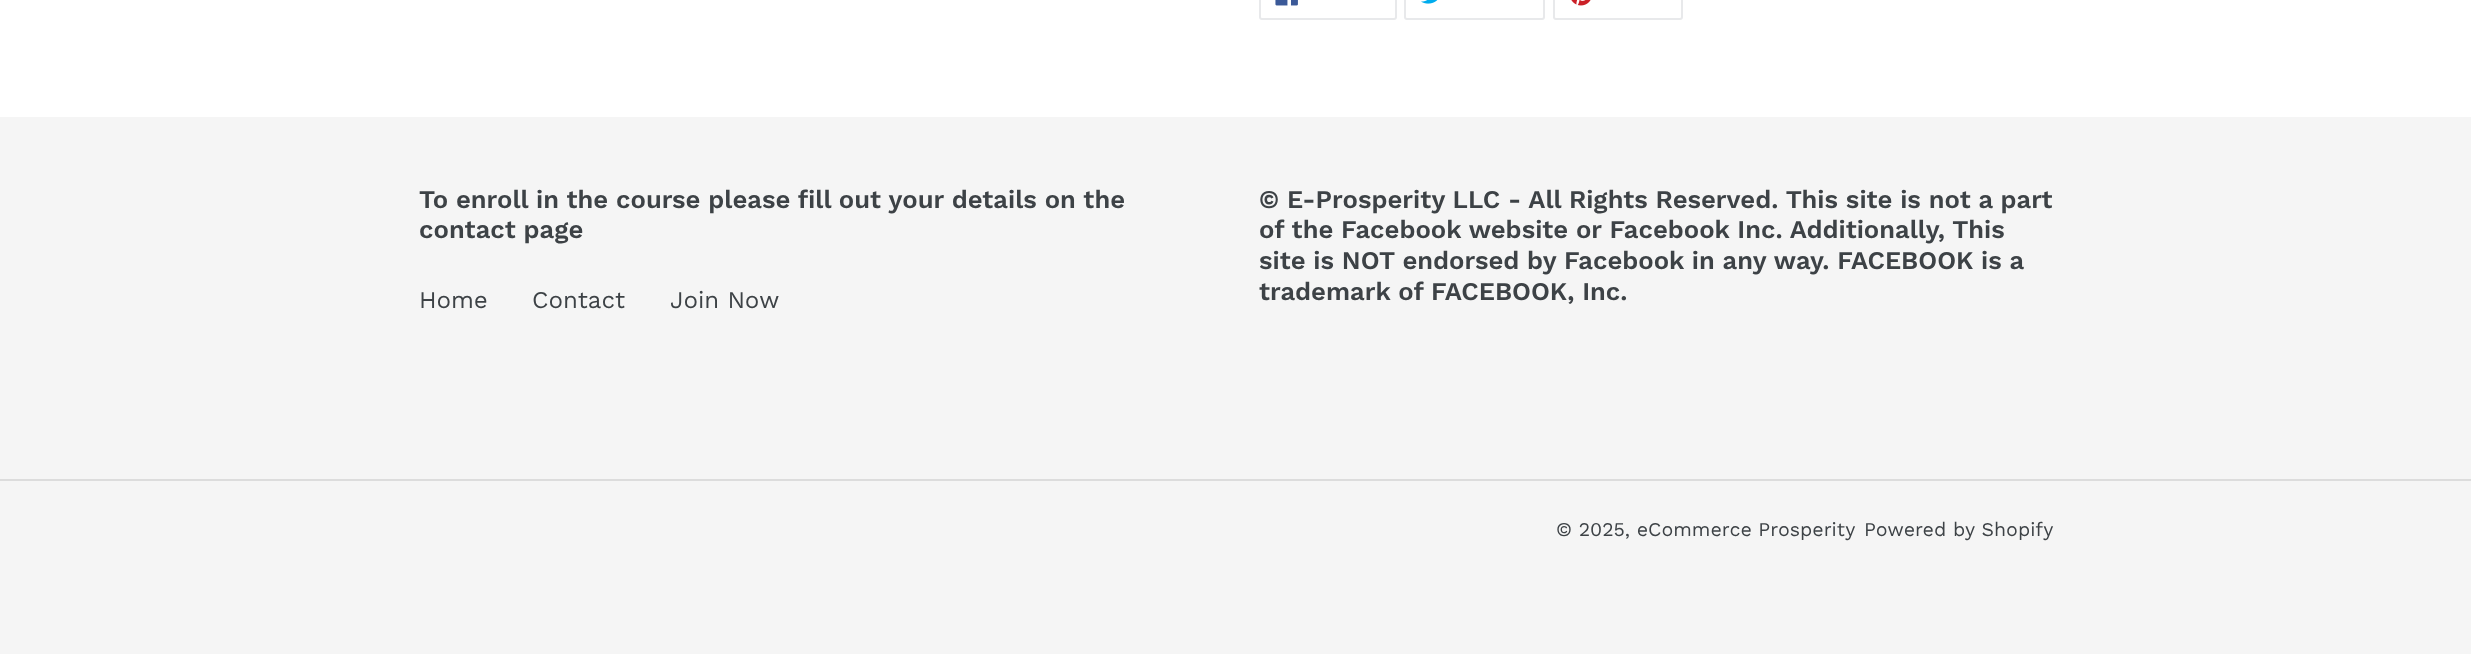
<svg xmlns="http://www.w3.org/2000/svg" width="2471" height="654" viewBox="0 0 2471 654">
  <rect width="100%" height="100%" fill="#ffffff"/>
  <rect x="1260" y="-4" width="136" height="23" rx="2" fill="none" stroke="#e8e9eb" stroke-width="2"/>
  <image x="1275" y="0" width="23" height="6" href="img1.png"/>
  <rect x="1405" y="-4" width="139" height="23" rx="2" fill="none" stroke="#e8e9eb" stroke-width="2"/>
  <image x="1421" y="0" width="17" height="4" href="img2.png"/>
  <rect x="1554" y="-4" width="128" height="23" rx="2" fill="none" stroke="#e8e9eb" stroke-width="2"/>
  <image x="1571" y="0" width="20" height="6" href="img3.png"/>
  <rect x="0" y="117" width="2471" height="537" fill="#f5f5f5"/>
  <text x="419" y="208" font-family="Work Sans" font-size="25.5" font-weight="600" fill="#3d4246">To enroll in the course please fill out your details on the</text>
  <text x="419" y="238" font-family="Work Sans" font-size="25.5" font-weight="600" fill="#3d4246">contact page</text>
  <text x="419" y="308" font-family="Work Sans" font-size="24" fill="#3d4246">Home</text>
  <text x="532" y="308" font-family="Work Sans" font-size="24" fill="#3d4246">Contact</text>
  <text x="670" y="308" font-family="Work Sans" font-size="24" fill="#3d4246">Join Now</text>
  <text x="1259" y="208" font-family="Work Sans" font-size="25.5" font-weight="600" fill="#3d4246">© E-Prosperity LLC - All Rights Reserved. This site is not a part</text>
  <text x="1259" y="238" font-family="Work Sans" font-size="25.5" font-weight="600" fill="#3d4246">of the Facebook website or Facebook Inc. Additionally, This</text>
  <text x="1259" y="269" font-family="Work Sans" font-size="25.5" font-weight="600" fill="#3d4246">site is NOT endorsed by Facebook in any way. FACEBOOK is a</text>
  <text x="1259" y="300" font-family="Work Sans" font-size="25.5" font-weight="600" fill="#3d4246">trademark of FACEBOOK, Inc.</text>
  <rect x="0" y="479" width="2471" height="2" fill="#dcdcdc"/>
  <text x="1556" y="536" font-family="Work Sans" font-size="19.5" fill="#3d4246">© 2025, eCommerce Prosperity</text>
  <text x="1864" y="536" font-family="Work Sans" font-size="19.5" fill="#3d4246">Powered by Shopify</text>
</svg>
